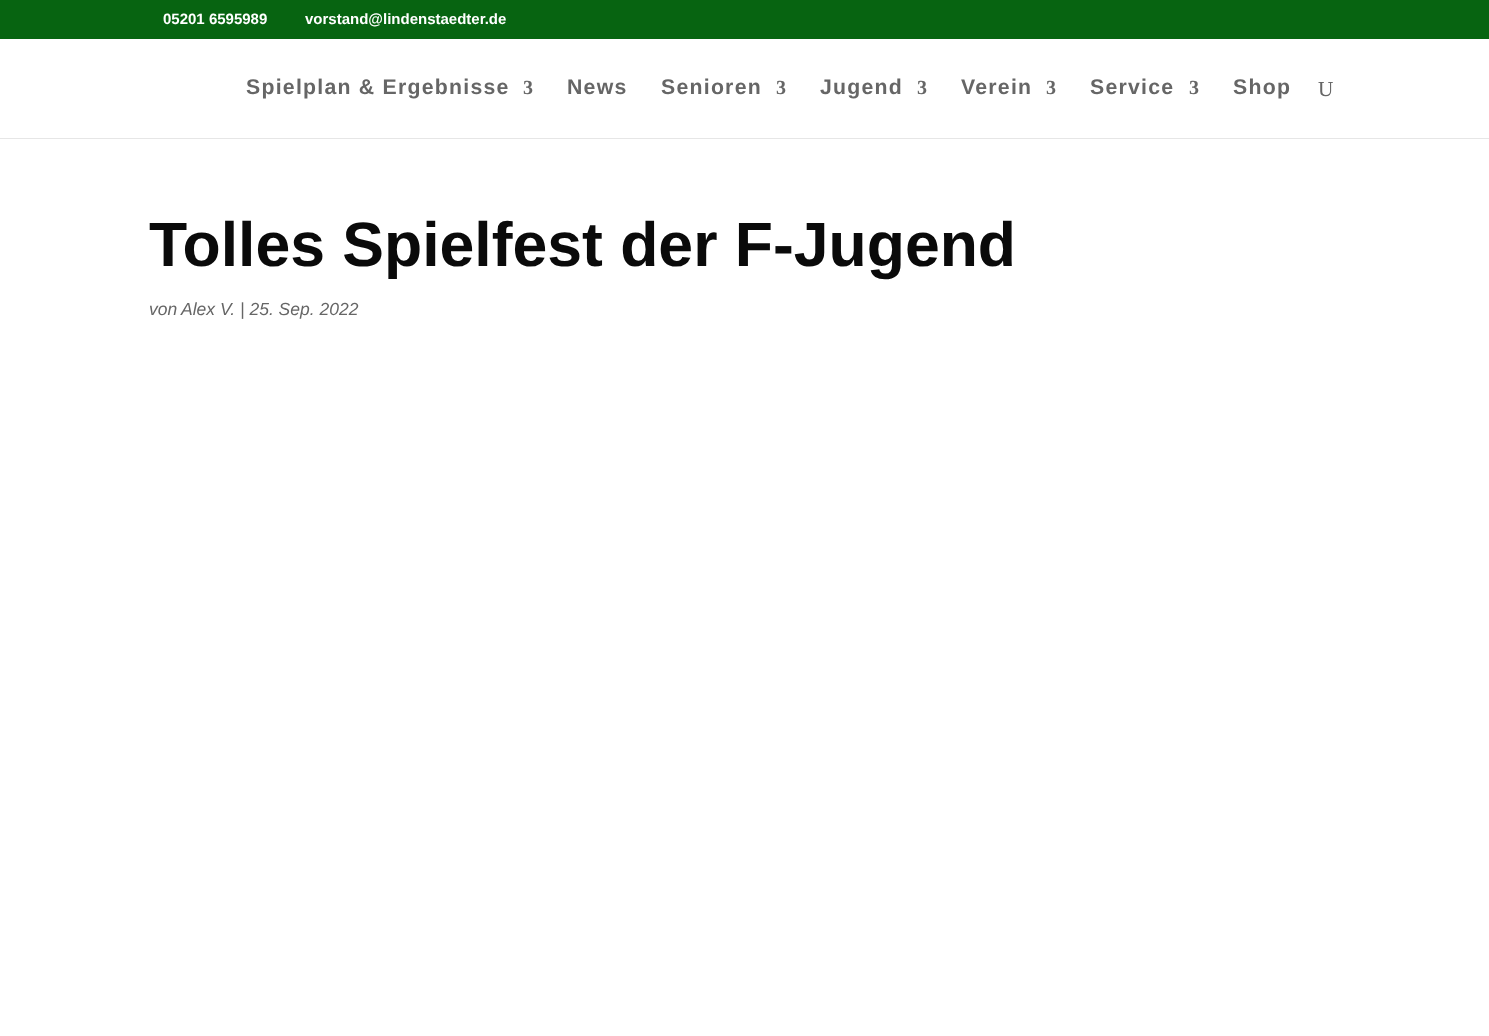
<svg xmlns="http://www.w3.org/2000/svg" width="1489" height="1036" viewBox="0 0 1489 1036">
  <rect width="100%" height="100%" fill="#ffffff"/>
  <rect x="0" y="0" width="1489" height="39" fill="#076411"/>
  <text x="163" y="24" font-family="Liberation Sans" font-size="15" font-weight="bold" fill="#ffffff">05201 6595989</text>
  <text x="305" y="24" font-family="Liberation Sans" font-size="15" font-weight="bold" fill="#ffffff">vorstand@lindenstaedter.de</text>
  <rect x="0" y="138" width="1489" height="1" fill="#e6e6e6"/>
  <text x="246" y="94" font-family="Liberation Sans" font-size="21.25" font-weight="bold" letter-spacing="1.25" fill="#666666">Spielplan &amp; Ergebnisse</text>
  <text x="523" y="94" font-family="Liberation Serif" font-size="20" font-weight="bold" letter-spacing="1.25" fill="#666666">3</text>
  <text x="567" y="94" font-family="Liberation Sans" font-size="21.25" font-weight="bold" letter-spacing="1.25" fill="#666666">News</text>
  <text x="661" y="94" font-family="Liberation Sans" font-size="21.25" font-weight="bold" letter-spacing="1.25" fill="#666666">Senioren</text>
  <text x="776" y="94" font-family="Liberation Serif" font-size="20" font-weight="bold" letter-spacing="1.25" fill="#666666">3</text>
  <text x="820" y="94" font-family="Liberation Sans" font-size="21.25" font-weight="bold" letter-spacing="1.25" fill="#666666">Jugend</text>
  <text x="917" y="94" font-family="Liberation Serif" font-size="20" font-weight="bold" letter-spacing="1.25" fill="#666666">3</text>
  <text x="961" y="94" font-family="Liberation Sans" font-size="21.25" font-weight="bold" letter-spacing="1.25" fill="#666666">Verein</text>
  <text x="1046" y="94" font-family="Liberation Serif" font-size="20" font-weight="bold" letter-spacing="1.25" fill="#666666">3</text>
  <text x="1090" y="94" font-family="Liberation Sans" font-size="21.25" font-weight="bold" letter-spacing="1.25" fill="#666666">Service</text>
  <text x="1189" y="94" font-family="Liberation Serif" font-size="20" font-weight="bold" letter-spacing="1.25" fill="#666666">3</text>
  <text x="1233" y="94" font-family="Liberation Sans" font-size="21.25" font-weight="bold" letter-spacing="1.25" fill="#666666">Shop</text>
  <text x="1318" y="96" font-family="Liberation Serif" font-size="21.25" fill="#666666">U</text>
  <text x="149" y="266" font-family="Liberation Sans" font-size="62.5" font-weight="bold" fill="#0a0a0a">Tolles Spielfest der F-Jugend</text>
  <text x="149" y="315" font-family="Liberation Sans" font-size="17.5" font-style="italic" fill="#666666">von</text>
  <text x="181" y="315" font-family="Liberation Sans" font-size="17.5" font-style="italic" fill="#666666">Alex V. | 25. Sep. 2022</text>
</svg>
